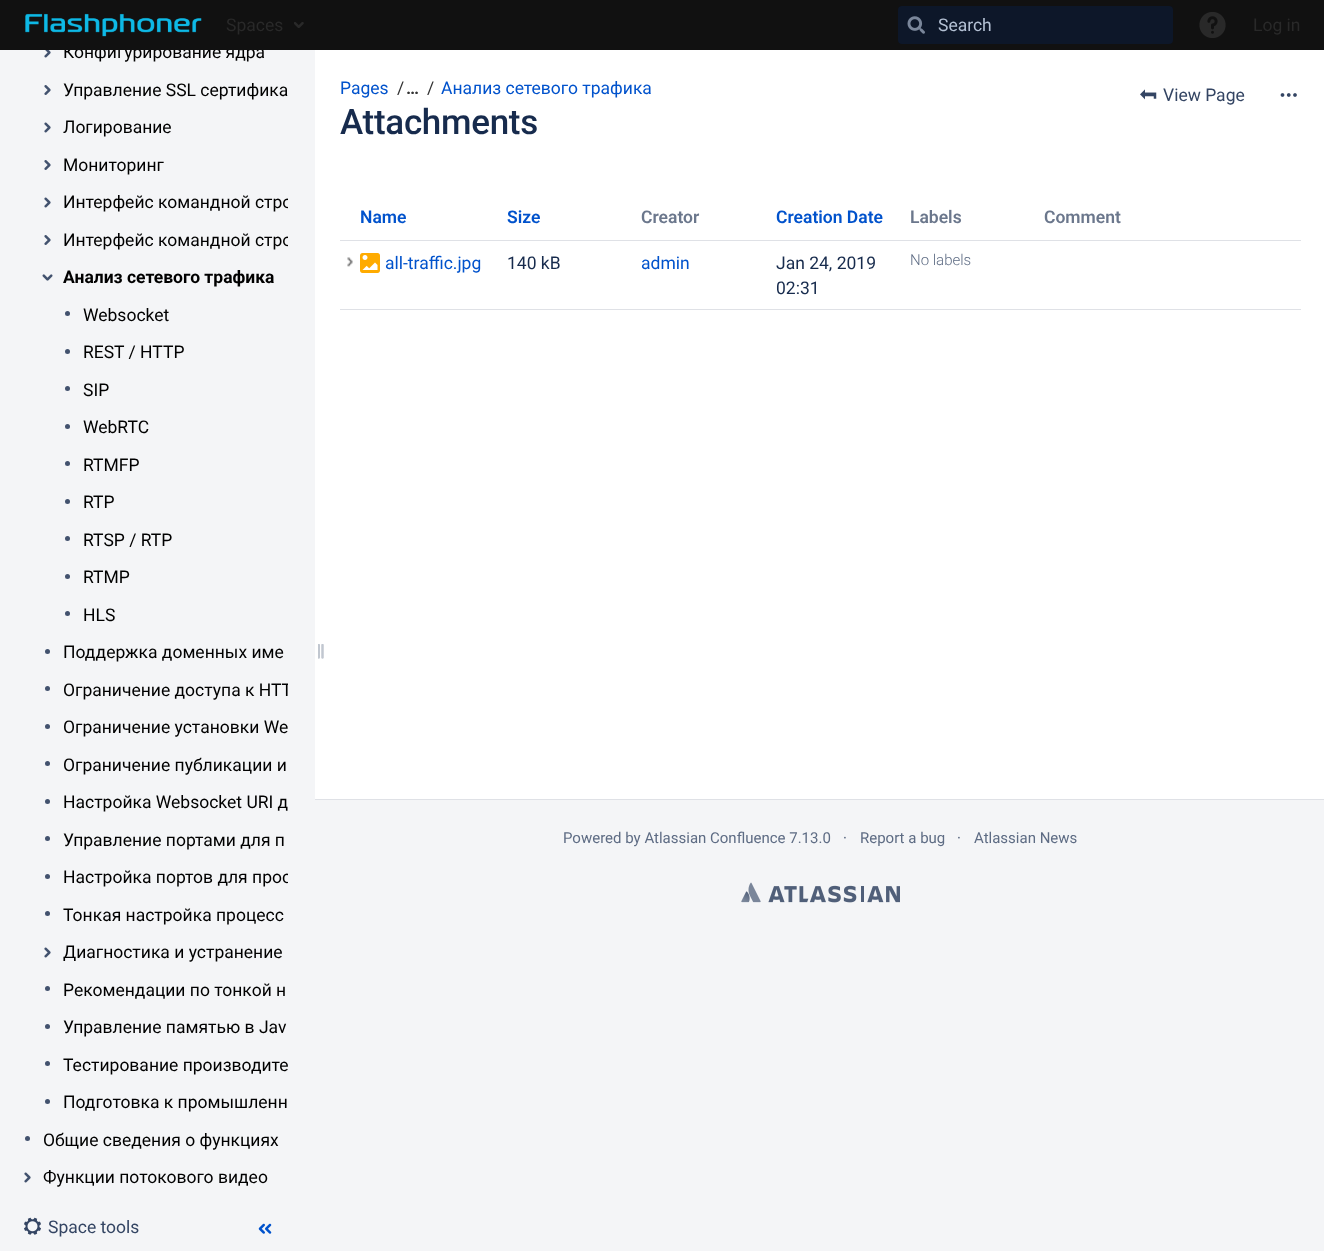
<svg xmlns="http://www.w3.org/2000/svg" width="1324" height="1251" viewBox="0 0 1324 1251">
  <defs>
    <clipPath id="clip1"><rect x="63" y="50" width="225" height="15"/></clipPath>
    <clipPath id="clip2"><rect x="63" y="190" width="225" height="25"/></clipPath>
    <clipPath id="clip3"><rect x="63" y="228" width="225" height="25"/></clipPath>
    <clipPath id="clip4"><rect x="63" y="678" width="225" height="25"/></clipPath>
    <clipPath id="clip5"><rect x="63" y="865" width="225" height="25"/></clipPath>
  </defs>
  <rect width="100%" height="100%" fill="#f4f5f7"/>
  <rect x="0" y="0" width="1324" height="50" fill="#111111"/>
  <image x="25" y="13" width="177" height="24" href="img1.png"/>
  <text x="226" y="31" font-family="Roboto" font-size="17.5" fill="#292929">Spaces</text>
  <image x="294" y="22" width="10" height="6" href="img2.png"/>
  <rect x="898" y="6" width="275" height="38" rx="4" fill="#0d1729"/>
  <image x="907" y="16" width="18" height="18" href="img3.png"/>
  <text x="938" y="31" font-family="Roboto" font-size="17.5" fill="#b4c1d4">Search</text>
  <image x="1199" y="12" width="27" height="26" href="img4.png"/>
  <text x="1253" y="31" font-family="Roboto" font-size="17.5" fill="#292929">Log in</text>
  <image x="44" y="50" width="7" height="8" href="img5.png"/>
  <g clip-path="url(#clip1)">
    <text x="63" y="58" font-family="Roboto" font-size="17.5" fill="#000000">Конфигурирование ядра</text>
  </g>
  <image x="44" y="85" width="7" height="10" href="img6.png"/>
  <text x="63" y="96" font-family="Roboto" font-size="17.5" fill="#000000">Управление SSL сертифика</text>
  <image x="44" y="122" width="7" height="11" href="img7.png"/>
  <text x="63" y="133" font-family="Roboto" font-size="17.5" fill="#000000">Логирование</text>
  <image x="44" y="160" width="7" height="10" href="img6.png"/>
  <text x="63" y="171" font-family="Roboto" font-size="17.5" fill="#000000">Мониторинг</text>
  <image x="44" y="197" width="7" height="11" href="img7.png"/>
  <g clip-path="url(#clip2)">
    <text x="63" y="208" font-family="Roboto" font-size="17.5" fill="#000000">Интерфейс командной стро</text>
  </g>
  <image x="44" y="235" width="7" height="10" href="img6.png"/>
  <g clip-path="url(#clip3)">
    <text x="63" y="246" font-family="Roboto" font-size="17.5" fill="#000000">Интерфейс командной стро</text>
  </g>
  <image x="42" y="274" width="11" height="7" href="img8.png"/>
  <text x="63" y="283" font-family="Roboto" font-size="17.5" font-weight="bold" fill="#000000">Анализ сетевого трафика</text>
  <circle cx="67.5" cy="313.5" r="2.5" fill="#42526e"/>
  <text x="83" y="321" font-family="Roboto" font-size="17.5" fill="#000000">Websocket</text>
  <circle cx="67.5" cy="351.5" r="2.5" fill="#42526e"/>
  <text x="83" y="358" font-family="Roboto" font-size="17.5" fill="#000000">REST / HTTP</text>
  <circle cx="67.5" cy="388.5" r="2.5" fill="#42526e"/>
  <text x="83" y="396" font-family="Roboto" font-size="17.5" fill="#000000">SIP</text>
  <circle cx="67.5" cy="426.5" r="2.5" fill="#42526e"/>
  <text x="83" y="433" font-family="Roboto" font-size="17.5" fill="#000000">WebRTC</text>
  <circle cx="67.5" cy="463.5" r="2.5" fill="#42526e"/>
  <text x="83" y="471" font-family="Roboto" font-size="17.5" fill="#000000">RTMFP</text>
  <circle cx="67.5" cy="501.5" r="2.5" fill="#42526e"/>
  <text x="83" y="508" font-family="Roboto" font-size="17.5" fill="#000000">RTP</text>
  <circle cx="67.5" cy="538.5" r="2.5" fill="#42526e"/>
  <text x="83" y="546" font-family="Roboto" font-size="17.5" fill="#000000">RTSP / RTP</text>
  <circle cx="67.5" cy="576.5" r="2.5" fill="#42526e"/>
  <text x="83" y="583" font-family="Roboto" font-size="17.5" fill="#000000">RTMP</text>
  <circle cx="67.5" cy="613.5" r="2.5" fill="#42526e"/>
  <text x="83" y="621" font-family="Roboto" font-size="17.5" fill="#000000">HLS</text>
  <circle cx="47.5" cy="651.5" r="2.5" fill="#42526e"/>
  <text x="63" y="658" font-family="Roboto" font-size="17.5" fill="#000000">Поддержка доменных име</text>
  <circle cx="47.5" cy="688.5" r="2.5" fill="#42526e"/>
  <g clip-path="url(#clip4)">
    <text x="63" y="696" font-family="Roboto" font-size="17.5" fill="#000000">Ограничение доступа к HTT</text>
  </g>
  <circle cx="47.5" cy="726.5" r="2.5" fill="#42526e"/>
  <text x="63" y="733" font-family="Roboto" font-size="17.5" fill="#000000">Ограничение установки We</text>
  <circle cx="47.5" cy="763.5" r="2.5" fill="#42526e"/>
  <text x="63" y="771" font-family="Roboto" font-size="17.5" fill="#000000">Ограничение публикации и</text>
  <circle cx="47.5" cy="801.5" r="2.5" fill="#42526e"/>
  <text x="63" y="808" font-family="Roboto" font-size="17.5" fill="#000000">Настройка Websocket URI д</text>
  <circle cx="47.5" cy="838.5" r="2.5" fill="#42526e"/>
  <text x="63" y="846" font-family="Roboto" font-size="17.5" fill="#000000">Управление портами для п</text>
  <circle cx="47.5" cy="876.5" r="2.5" fill="#42526e"/>
  <g clip-path="url(#clip5)">
    <text x="63" y="883" font-family="Roboto" font-size="17.5" fill="#000000">Настройка портов для прос</text>
  </g>
  <circle cx="47.5" cy="913.5" r="2.5" fill="#42526e"/>
  <text x="63" y="921" font-family="Roboto" font-size="17.5" fill="#000000">Тонкая настройка процесс</text>
  <image x="44" y="947" width="7" height="11" href="img7.png"/>
  <text x="63" y="958" font-family="Roboto" font-size="17.5" fill="#000000">Диагностика и устранение</text>
  <circle cx="47.5" cy="988.5" r="2.5" fill="#42526e"/>
  <text x="63" y="996" font-family="Roboto" font-size="17.5" fill="#000000">Рекомендации по тонкой н</text>
  <circle cx="47.5" cy="1026.5" r="2.5" fill="#42526e"/>
  <text x="63" y="1033" font-family="Roboto" font-size="17.5" fill="#000000">Управление памятью в Jav</text>
  <circle cx="47.5" cy="1063.5" r="2.5" fill="#42526e"/>
  <text x="63" y="1071" font-family="Roboto" font-size="17.5" fill="#000000">Тестирование производите</text>
  <circle cx="47.5" cy="1101.5" r="2.5" fill="#42526e"/>
  <text x="63" y="1108" font-family="Roboto" font-size="17.5" fill="#000000">Подготовка к промышленн</text>
  <circle cx="27.5" cy="1138.5" r="2.5" fill="#42526e"/>
  <text x="43" y="1146" font-family="Roboto" font-size="17.5" fill="#000000">Общие сведения о функциях</text>
  <image x="24" y="1172" width="7" height="11" href="img7.png"/>
  <text x="43" y="1183" font-family="Roboto" font-size="17.5" fill="#000000">Функции потокового видео</text>
  <rect x="315" y="50" width="1009" height="749" fill="#ffffff"/>
  <image x="318" y="644" width="6" height="15" href="img9.png"/>
  <image x="24" y="1217" width="17" height="18" href="img10.png"/>
  <text x="48" y="1233" font-family="Roboto" font-size="17.5" fill="#344563">Space tools</text>
  <image x="258" y="1223" width="14" height="11" href="img11.png"/>
  <rect x="315" y="799" width="1009" height="1" fill="#dfe1e6"/>
  <text x="340" y="94" font-family="Roboto" font-size="17.5" fill="#0052cc">Pages</text>
  <text x="397" y="94" font-family="Roboto" font-size="17.5" fill="#333333">/</text>
  <text x="406" y="94" font-family="Roboto" font-size="17.5" font-weight="bold" fill="#333333">…</text>
  <text x="427" y="94" font-family="Roboto" font-size="17.5" fill="#333333">/</text>
  <text x="441" y="94" font-family="Roboto" font-size="17.5" fill="#0052cc">Анализ сетевого трафика</text>
  <text x="340" y="134" font-family="Roboto" font-size="35" font-weight="500" letter-spacing="-0.3" fill="#172b4d">Attachments</text>
  <image x="1140" y="89" width="17" height="11" href="img12.png"/>
  <text x="1163" y="101" font-family="Roboto" font-size="17.5" fill="#344563">View Page</text>
  <image x="1280" y="93" width="17" height="4" href="img13.png"/>
  <text x="360" y="223" font-family="Roboto" font-size="17.5" font-weight="600" fill="#0052cc">Name</text>
  <text x="507" y="223" font-family="Roboto" font-size="17.5" font-weight="600" fill="#0052cc">Size</text>
  <text x="641" y="223" font-family="Roboto" font-size="17.5" font-weight="600" fill="#6b778c">Creator</text>
  <text x="776" y="223" font-family="Roboto" font-size="17.5" font-weight="600" fill="#0052cc">Creation Date</text>
  <text x="910" y="223" font-family="Roboto" font-size="17.5" font-weight="600" fill="#6b778c">Labels</text>
  <text x="1044" y="223" font-family="Roboto" font-size="17.5" font-weight="600" fill="#6b778c">Comment</text>
  <rect x="340" y="240" width="961" height="1" fill="#dfe1e6"/>
  <image x="347" y="257" width="6" height="10" href="img14.png"/>
  <image x="360" y="253" width="20" height="20" href="img15.png"/>
  <text x="385" y="269" font-family="Roboto" font-size="17.5" fill="#0052cc">all-traffic.jpg</text>
  <text x="507" y="269" font-family="Roboto" font-size="17.5" fill="#172b4d">140 kB</text>
  <text x="641" y="269" font-family="Roboto" font-size="17.5" fill="#0052cc">admin</text>
  <text x="776" y="269" font-family="Roboto" font-size="17.5" fill="#172b4d">Jan 24, 2019</text>
  <text x="776" y="294" font-family="Roboto" font-size="17.5" fill="#172b4d">02:31</text>
  <text x="910" y="265" font-family="Roboto" font-size="15" font-weight="300" fill="#5e6c84">No labels</text>
  <rect x="340" y="309" width="961" height="1" fill="#dfe1e6"/>
  <text x="563" y="843" font-family="Roboto" font-size="15" fill="#5e6c84">Powered by Atlassian Confluence 7.13.0</text>
  <text x="843" y="843" font-family="Roboto" font-size="15" fill="#5e6c84">·</text>
  <text x="860" y="843" font-family="Roboto" font-size="15" fill="#5e6c84">Report a bug</text>
  <text x="957" y="843" font-family="Roboto" font-size="15" fill="#5e6c84">·</text>
  <text x="974" y="843" font-family="Roboto" font-size="15" fill="#5e6c84">Atlassian News</text>
  <image x="741" y="882" width="159" height="21" href="img16.png"/>
</svg>
